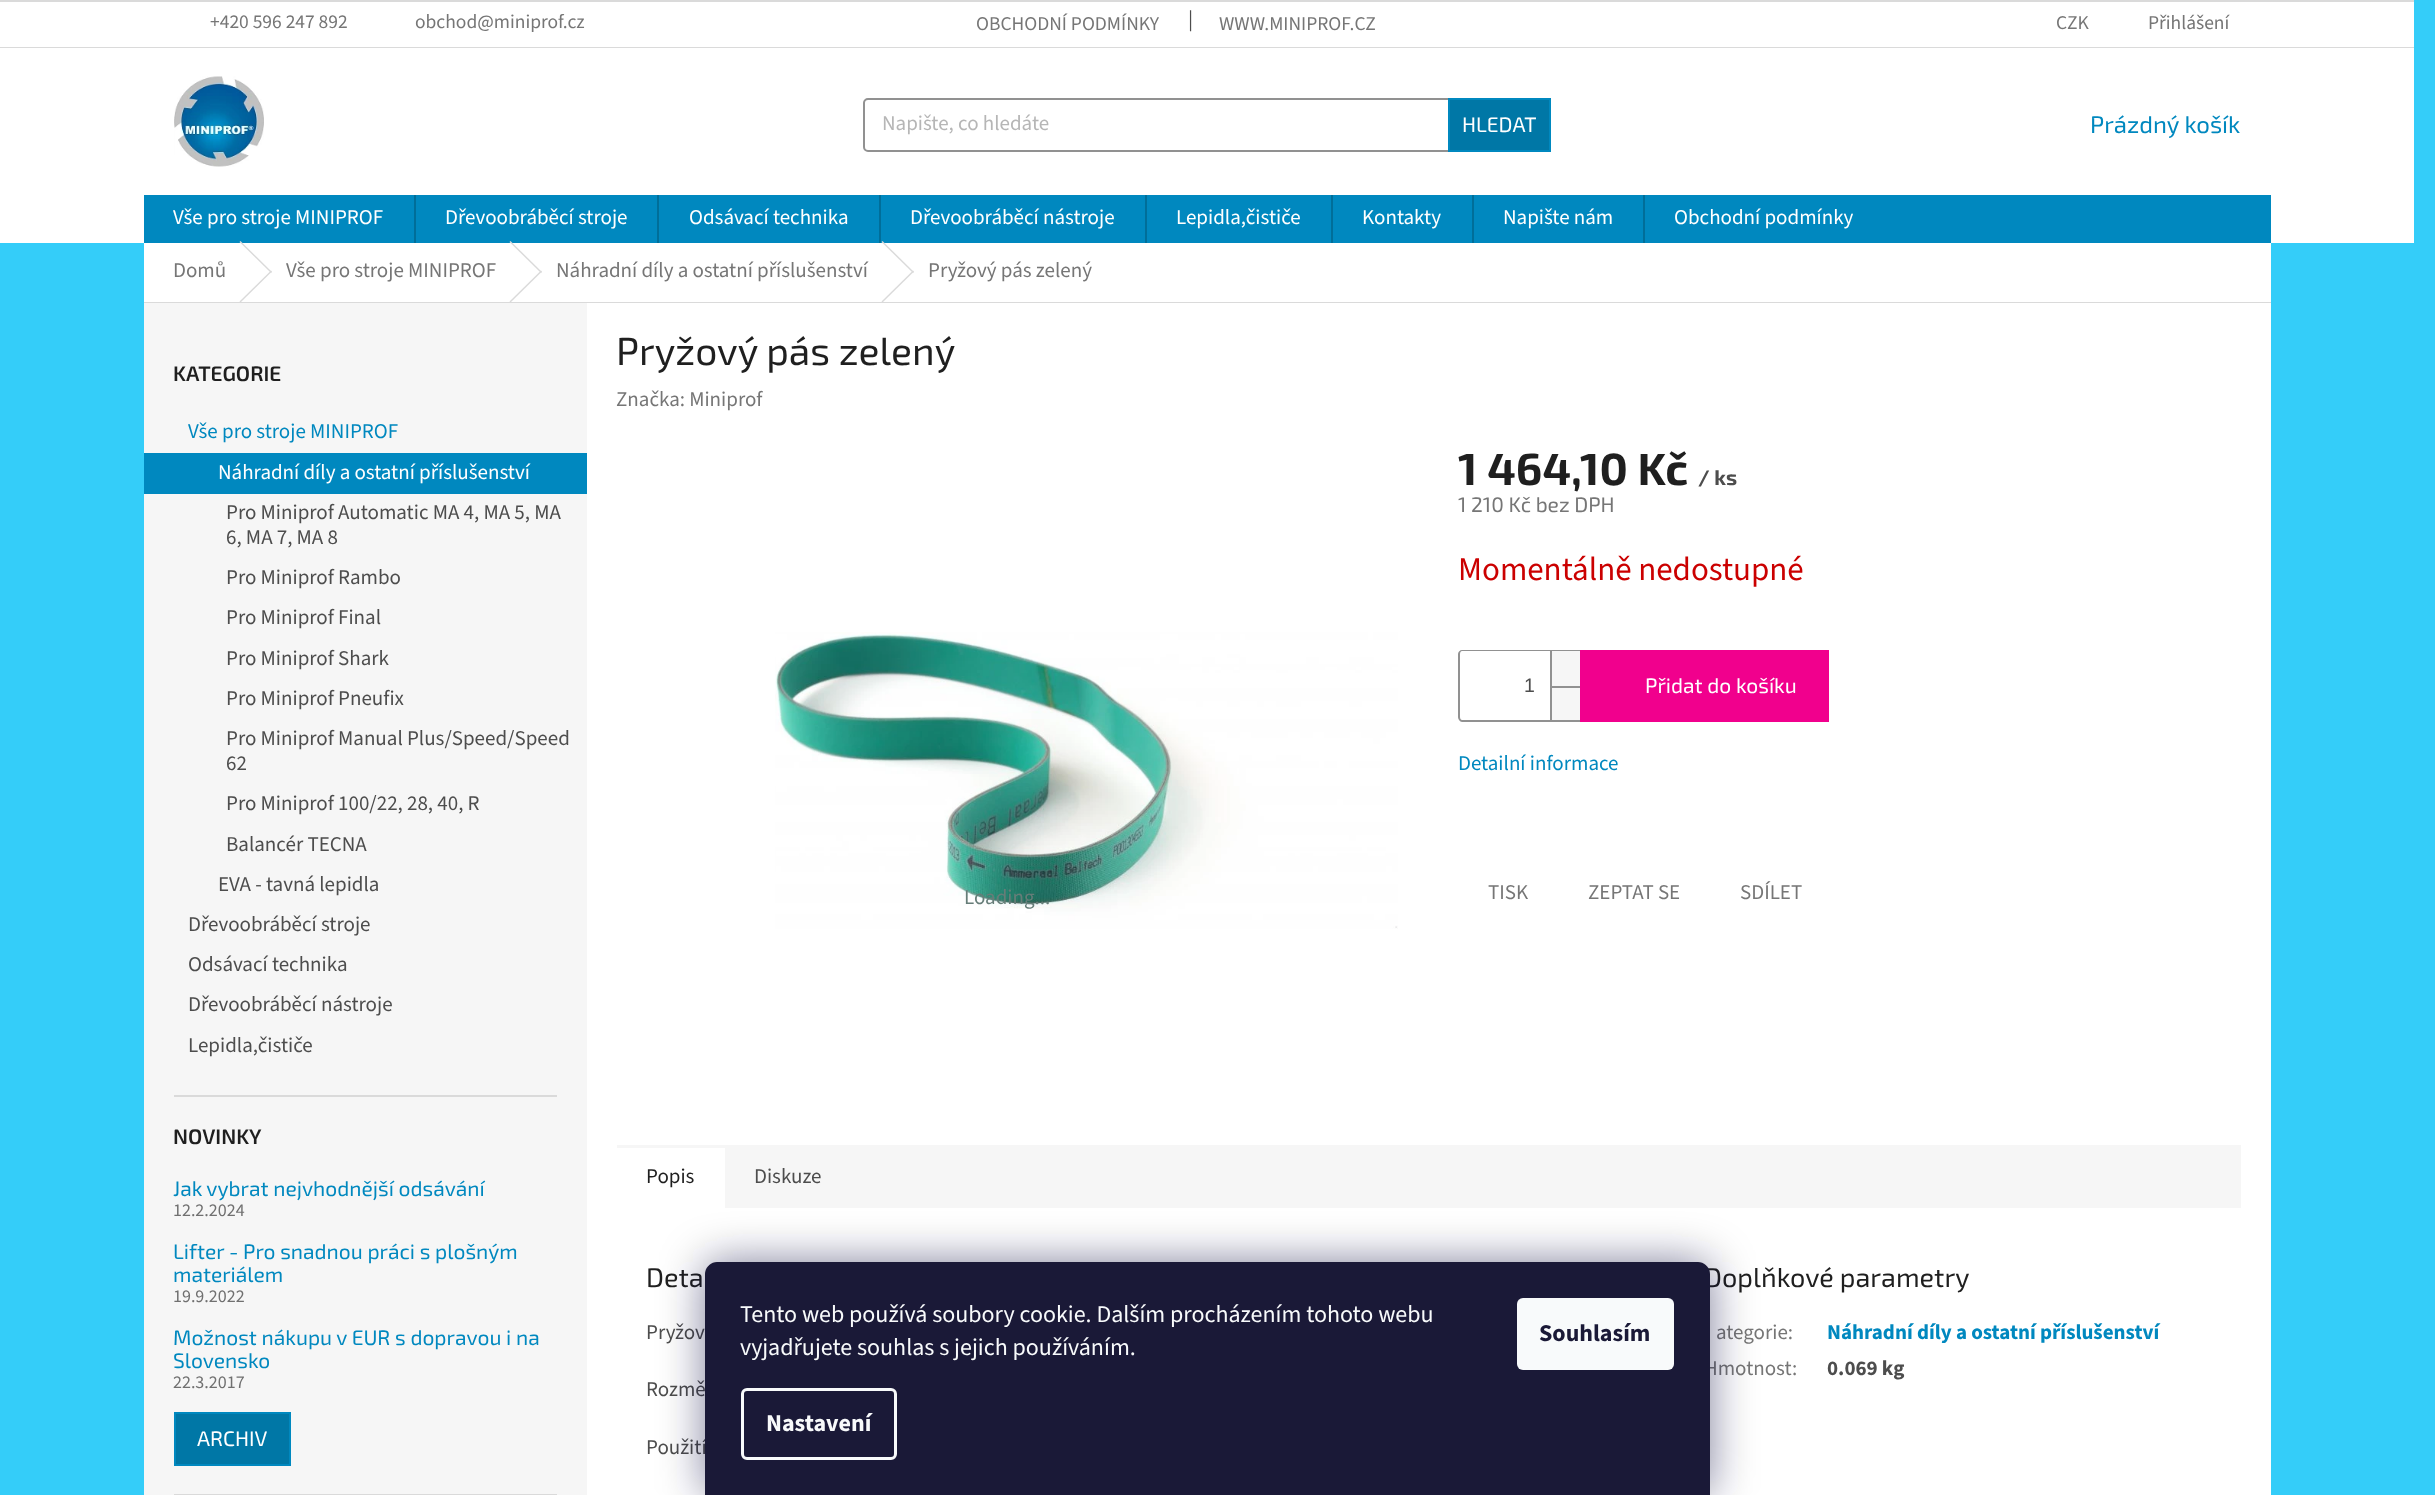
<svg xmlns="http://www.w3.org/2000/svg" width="2435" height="1495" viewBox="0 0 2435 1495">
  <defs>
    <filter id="blur1" x="-50%" y="-200%" width="200%" height="500%"><feGaussianBlur stdDeviation="22.5"/></filter>
  </defs>
  <rect width="100%" height="100%" fill="#34cdf9"/>
  <rect x="0" y="2" width="2414" height="45" fill="#ffffff"/>
  <rect x="0" y="0" width="2414" height="2" fill="#dadada"/>
  <rect x="0" y="47" width="2414" height="1" fill="#dadada"/>
  <text x="210" y="28" font-family="'Source Sans 3'" font-size="19.5" fill="#767676">+420 596 247 892</text>
  <text x="415" y="28" font-family="'Source Sans 3'" font-size="19.5" fill="#767676">obchod@miniprof.cz</text>
  <text x="976" y="30" font-family="'Source Sans 3'" font-size="19.5" fill="#767676">OBCHODNÍ PODMÍNKY</text>
  <text x="1188" y="26" font-family="'Source Sans 3'" font-size="21" fill="#4d4d4d">|</text>
  <text x="1219" y="30" font-family="'Source Sans 3'" font-size="19.5" fill="#767676">WWW.MINIPROF.CZ</text>
  <text x="2056" y="29" font-family="'Source Sans 3'" font-size="19.5" fill="#767676">CZK</text>
  <text x="2148" y="29" font-family="'Source Sans 3'" font-size="19.5" fill="#767676">Přihlášení</text>
  <rect x="0" y="48" width="2414" height="195" fill="#ffffff"/>
  <image x="174" y="76" width="90" height="91" href="img1.png"/>
  <rect x="864" y="99" width="686" height="52" rx="4" fill="none" stroke="#919191" stroke-width="2"/>
  <text x="882" y="130" font-family="'Source Sans 3'" font-size="21" fill="#b6b6b6">Napište, co hledáte</text>
  <rect x="1449" y="99" width="101" height="52" fill="#0077a6" stroke="#0088bf" stroke-width="2"/>
  <text x="1462" y="132" font-family="'Exo 2'" font-size="21" fill="#ffffff">HLEDAT</text>
  <text x="2090" y="133" font-family="'Exo 2'" font-size="24" fill="#0088bf">Prázdný košík</text>
  <rect x="144" y="195" width="2127" height="48" fill="#0088bf"/>
  <text x="173" y="224" font-family="'Source Sans 3'" font-size="21" fill="#ffffff">Vše pro stroje MINIPROF</text>
  <rect x="414" y="195" width="2" height="48" fill="#006e99"/>
  <text x="445" y="224" font-family="'Source Sans 3'" font-size="21" fill="#ffffff">Dřevoobráběcí stroje</text>
  <rect x="657" y="195" width="2" height="48" fill="#006e99"/>
  <text x="689" y="224" font-family="'Source Sans 3'" font-size="21" fill="#ffffff">Odsávací technika</text>
  <rect x="879" y="195" width="2" height="48" fill="#006e99"/>
  <text x="910" y="224" font-family="'Source Sans 3'" font-size="21" fill="#ffffff">Dřevoobráběcí nástroje</text>
  <rect x="1145" y="195" width="2" height="48" fill="#006e99"/>
  <text x="1176" y="224" font-family="'Source Sans 3'" font-size="21" fill="#ffffff">Lepidla,čističe</text>
  <rect x="1331" y="195" width="2" height="48" fill="#006e99"/>
  <text x="1362" y="224" font-family="'Source Sans 3'" font-size="21" fill="#ffffff">Kontakty</text>
  <rect x="1472" y="195" width="2" height="48" fill="#006e99"/>
  <text x="1503" y="224" font-family="'Source Sans 3'" font-size="21" fill="#ffffff">Napište nám</text>
  <rect x="1643" y="195" width="2" height="48" fill="#006e99"/>
  <text x="1674" y="224" font-family="'Source Sans 3'" font-size="21" fill="#ffffff">Obchodní podmínky</text>
  <rect x="144" y="243" width="2127" height="59" fill="#ffffff"/>
  <rect x="144" y="302" width="2127" height="1" fill="#dadada"/>
  <text x="173" y="277" font-family="'Source Sans 3'" font-size="21" fill="#767676">Domů</text>
  <path d="M239.5 242L240.5 241L272 272L271 273Z" fill="#dadada"/>
  <path d="M271 270.5L272 271.5L240.5 302.5L239.5 301.5Z" fill="#dadada"/>
  <text x="286" y="277" font-family="'Source Sans 3'" font-size="21" fill="#767676">Vše pro stroje MINIPROF</text>
  <path d="M509.5 242L510.5 241L542 272L541 273Z" fill="#dadada"/>
  <path d="M541 270.5L542 271.5L510.5 302.5L509.5 301.5Z" fill="#dadada"/>
  <text x="556" y="277" font-family="'Source Sans 3'" font-size="21" fill="#767676">Náhradní díly a ostatní příslušenství</text>
  <path d="M881.5 242L882.5 241L914 272L913 273Z" fill="#dadada"/>
  <path d="M913 270.5L914 271.5L882.5 302.5L881.5 301.5Z" fill="#dadada"/>
  <text x="928" y="277" font-family="'Source Sans 3'" font-size="21" fill="#767676">Pryžový pás zelený</text>
  <rect x="587" y="303" width="1684" height="1192" fill="#ffffff"/>
  <rect x="144" y="303" width="443" height="1192" fill="#f6f6f6"/>
  <rect x="174" y="1095" width="383" height="2" fill="#dadada"/>
  <text x="173" y="381" font-family="'Exo 2'" font-size="21" font-weight="600" fill="#1f1f1f">KATEGORIE</text>
  <text x="188" y="438" font-family="'Source Sans 3'" font-size="21" fill="#0088bf">Vše pro stroje MINIPROF</text>
  <rect x="144" y="453" width="443" height="41" fill="#0088bf"/>
  <text x="218" y="479" font-family="'Source Sans 3'" font-size="21" fill="#ffffff">Náhradní díly a ostatní příslušenství</text>
  <text x="226" y="519" font-family="'Source Sans 3'" font-size="21" fill="#4d4d4d">Pro Miniprof Automatic MA 4, MA 5, MA</text>
  <text x="226" y="544" font-family="'Source Sans 3'" font-size="21" fill="#4d4d4d">6, MA 7, MA 8</text>
  <text x="226" y="584" font-family="'Source Sans 3'" font-size="21" fill="#4d4d4d">Pro Miniprof Rambo</text>
  <text x="226" y="624" font-family="'Source Sans 3'" font-size="21" fill="#4d4d4d">Pro Miniprof Final</text>
  <text x="226" y="665" font-family="'Source Sans 3'" font-size="21" fill="#4d4d4d">Pro Miniprof Shark</text>
  <text x="226" y="705" font-family="'Source Sans 3'" font-size="21" fill="#4d4d4d">Pro Miniprof Pneufix</text>
  <text x="226" y="745" font-family="'Source Sans 3'" font-size="21" fill="#4d4d4d">Pro Miniprof Manual Plus/Speed/Speed</text>
  <text x="226" y="770" font-family="'Source Sans 3'" font-size="21" fill="#4d4d4d">62</text>
  <text x="226" y="810" font-family="'Source Sans 3'" font-size="21" fill="#4d4d4d">Pro Miniprof 100/22, 28, 40, R</text>
  <text x="226" y="851" font-family="'Source Sans 3'" font-size="21" fill="#4d4d4d">Balancér TECNA</text>
  <text x="218" y="891" font-family="'Source Sans 3'" font-size="21" fill="#4d4d4d">EVA - tavná lepidla</text>
  <text x="188" y="931" font-family="'Source Sans 3'" font-size="21" fill="#4d4d4d">Dřevoobráběcí stroje</text>
  <text x="188" y="971" font-family="'Source Sans 3'" font-size="21" fill="#4d4d4d">Odsávací technika</text>
  <text x="188" y="1011" font-family="'Source Sans 3'" font-size="21" fill="#4d4d4d">Dřevoobráběcí nástroje</text>
  <text x="188" y="1052" font-family="'Source Sans 3'" font-size="21" fill="#4d4d4d">Lepidla,čističe</text>
  <rect x="174" y="1494" width="383" height="1" fill="#dadada"/>
  <text x="173" y="1144" font-family="'Exo 2'" font-size="21" font-weight="600" fill="#1f1f1f">NOVINKY</text>
  <text x="173" y="1196" font-family="'Exo 2'" font-size="21" fill="#0088bf">Jak vybrat nejvhodnější odsávání</text>
  <text x="173" y="1216" font-family="'Source Sans 3'" font-size="18" fill="#707070">12.2.2024</text>
  <text x="173" y="1259" font-family="'Exo 2'" font-size="21" fill="#0088bf">Lifter - Pro snadnou práci s plošným</text>
  <text x="173" y="1282" font-family="'Exo 2'" font-size="21" fill="#0088bf">materiálem</text>
  <text x="173" y="1302" font-family="'Source Sans 3'" font-size="18" fill="#707070">19.9.2022</text>
  <text x="173" y="1345" font-family="'Exo 2'" font-size="21" fill="#0088bf">Možnost nákupu v EUR s dopravou i na</text>
  <text x="173" y="1368" font-family="'Exo 2'" font-size="21" fill="#0088bf">Slovensko</text>
  <text x="173" y="1388" font-family="'Source Sans 3'" font-size="18" fill="#707070">22.3.2017</text>
  <rect x="175" y="1413" width="115" height="52" fill="#0077a6" stroke="#0088bf" stroke-width="2"/>
  <text x="197" y="1446" font-family="'Exo 2'" font-size="21" fill="#ffffff">ARCHIV</text>
  <text x="616" y="365" font-family="'Exo 2'" font-size="39" fill="#1f1f1f">Pryžový pás zelený</text>
  <text x="616" y="406" font-family="'Source Sans 3'" font-size="21" fill="#767676">Značka: Miniprof</text>
  <image x="775" y="632" width="623" height="297" href="img2.png"/>
  <text x="964" y="904" font-family="'Source Sans 3'" font-size="21" fill="#667d78">Loading...</text>
  <text x="1458" y="485" font-family="'Exo 2'" font-size="45" font-weight="bold" fill="#1f1f1f">1 464,10 Kč</text>
  <text x="1698" y="485" font-family="'Exo 2'" font-size="21" font-weight="bold" fill="#4d4d4d">/ ks</text>
  <text x="1458" y="512" font-family="'Exo 2'" font-size="21" fill="#767676">1 210 Kč bez DPH</text>
  <text x="1458" y="580" font-family="'Source Sans 3'" font-size="33" fill="#cb0000">Momentálně nedostupné</text>
  <path d="M1462 650H1580V722H1462C1460 722 1458 719 1458 717V654C1458 652 1460 650 1462 650ZM1462 651H1580V720H1462C1461 720 1460 719 1460 717V654C1460 652 1461 651 1462 651Z" fill="#919191" fill-rule="evenodd"/>
  <text x="1524" y="692" font-family="Liberation Sans" font-size="19.5" fill="#4d4d4d">1</text>
  <rect x="1552" y="651" width="28" height="35" fill="#f6f6f6"/>
  <rect x="1550" y="651" width="2" height="35" fill="#919191"/>
  <rect x="1552" y="688" width="28" height="32" fill="#f6f6f6"/>
  <rect x="1550" y="686" width="30" height="2" fill="#919191"/>
  <rect x="1550" y="686" width="2" height="34" fill="#919191"/>
  <rect x="1580" y="650" width="249" height="72" fill="#f1008d"/>
  <text x="1645" y="693" font-family="'Exo 2'" font-size="21" fill="#ffffff">Přidat do košíku</text>
  <text x="1458" y="770" font-family="'Source Sans 3'" font-size="21" fill="#0088bf">Detailní informace</text>
  <text x="1488" y="899" font-family="'Source Sans 3'" font-size="21" fill="#767676">TISK</text>
  <text x="1588" y="899" font-family="'Source Sans 3'" font-size="21" fill="#767676">ZEPTAT SE</text>
  <text x="1740" y="899" font-family="'Source Sans 3'" font-size="21" fill="#767676">SDÍLET</text>
  <rect x="725" y="1145" width="1516" height="63" fill="#f6f6f6"/>
  <rect x="617" y="1145" width="108" height="3" fill="#f6f6f6"/>
  <text x="646" y="1183" font-family="'Source Sans 3'" font-size="21" fill="#1f1f1f">Popis</text>
  <text x="754" y="1183" font-family="'Source Sans 3'" font-size="21" fill="#4d4d4d">Diskuze</text>
  <text x="646" y="1287" font-family="'Exo 2'" font-size="27" fill="#1f1f1f">Deta</text>
  <text x="646" y="1339" font-family="'Source Sans 3'" font-size="21" fill="#4d4d4d">Pryžov</text>
  <text x="646" y="1396" font-family="'Source Sans 3'" font-size="21" fill="#4d4d4d">Rozmě</text>
  <text x="646" y="1454" font-family="'Source Sans 3'" font-size="21" fill="#4d4d4d">Použití</text>
  <text x="1704" y="1287" font-family="'Exo 2'" font-size="27" fill="#1f1f1f">Doplňkové parametry</text>
  <text x="1716" y="1339" font-family="'Source Sans 3'" font-size="21" fill="#767676">ategorie:</text>
  <text x="1827" y="1339" font-family="'Source Sans 3'" font-size="21" font-weight="bold" fill="#0088bf">Náhradní díly a ostatní příslušenství</text>
  <text x="1704" y="1375" font-family="'Source Sans 3'" font-size="21" fill="#767676">Hmotnost</text>
  <text x="1792" y="1375" font-family="'Source Sans 3'" font-size="21" fill="#767676">:</text>
  <text x="1827" y="1375" font-family="'Source Sans 3'" font-size="21" font-weight="bold" fill="#4d4d4d">0.069 kg</text>
  <rect x="705" y="1262" width="1005" height="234" rx="12" fill="#1b1939" fill-opacity="0.5" filter="url(#blur1)"/>
  <path d="M717 1262H1698C1704.5 1262 1710 1267.5 1710 1274V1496H705V1274C705 1267.5 710.5 1262 717 1262Z" fill="#1a1937"/>
  <text x="740" y="1322" font-family="'Source Sans 3'" font-size="24" fill="#f8fafb">Tento web používá soubory cookie. Dalším procházením tohoto webu</text>
  <text x="740" y="1355" font-family="'Source Sans 3'" font-size="24" fill="#f8fafb">vyjadřujete souhlas s jejich používáním.</text>
  <rect x="742.5" y="1389.5" width="153" height="69" rx="4.5" fill="none" stroke="#f8fafb" stroke-width="3"/>
  <text x="766" y="1431" font-family="'Source Sans 3'" font-size="24" font-weight="bold" fill="#f8fafb">Nastavení</text>
  <rect x="1517" y="1298" width="157" height="72" rx="6" fill="#f8fafb"/>
  <text x="1539" y="1341" font-family="'Source Sans 3'" font-size="24" font-weight="bold" fill="#1a1937">Souhlasím</text>
</svg>
